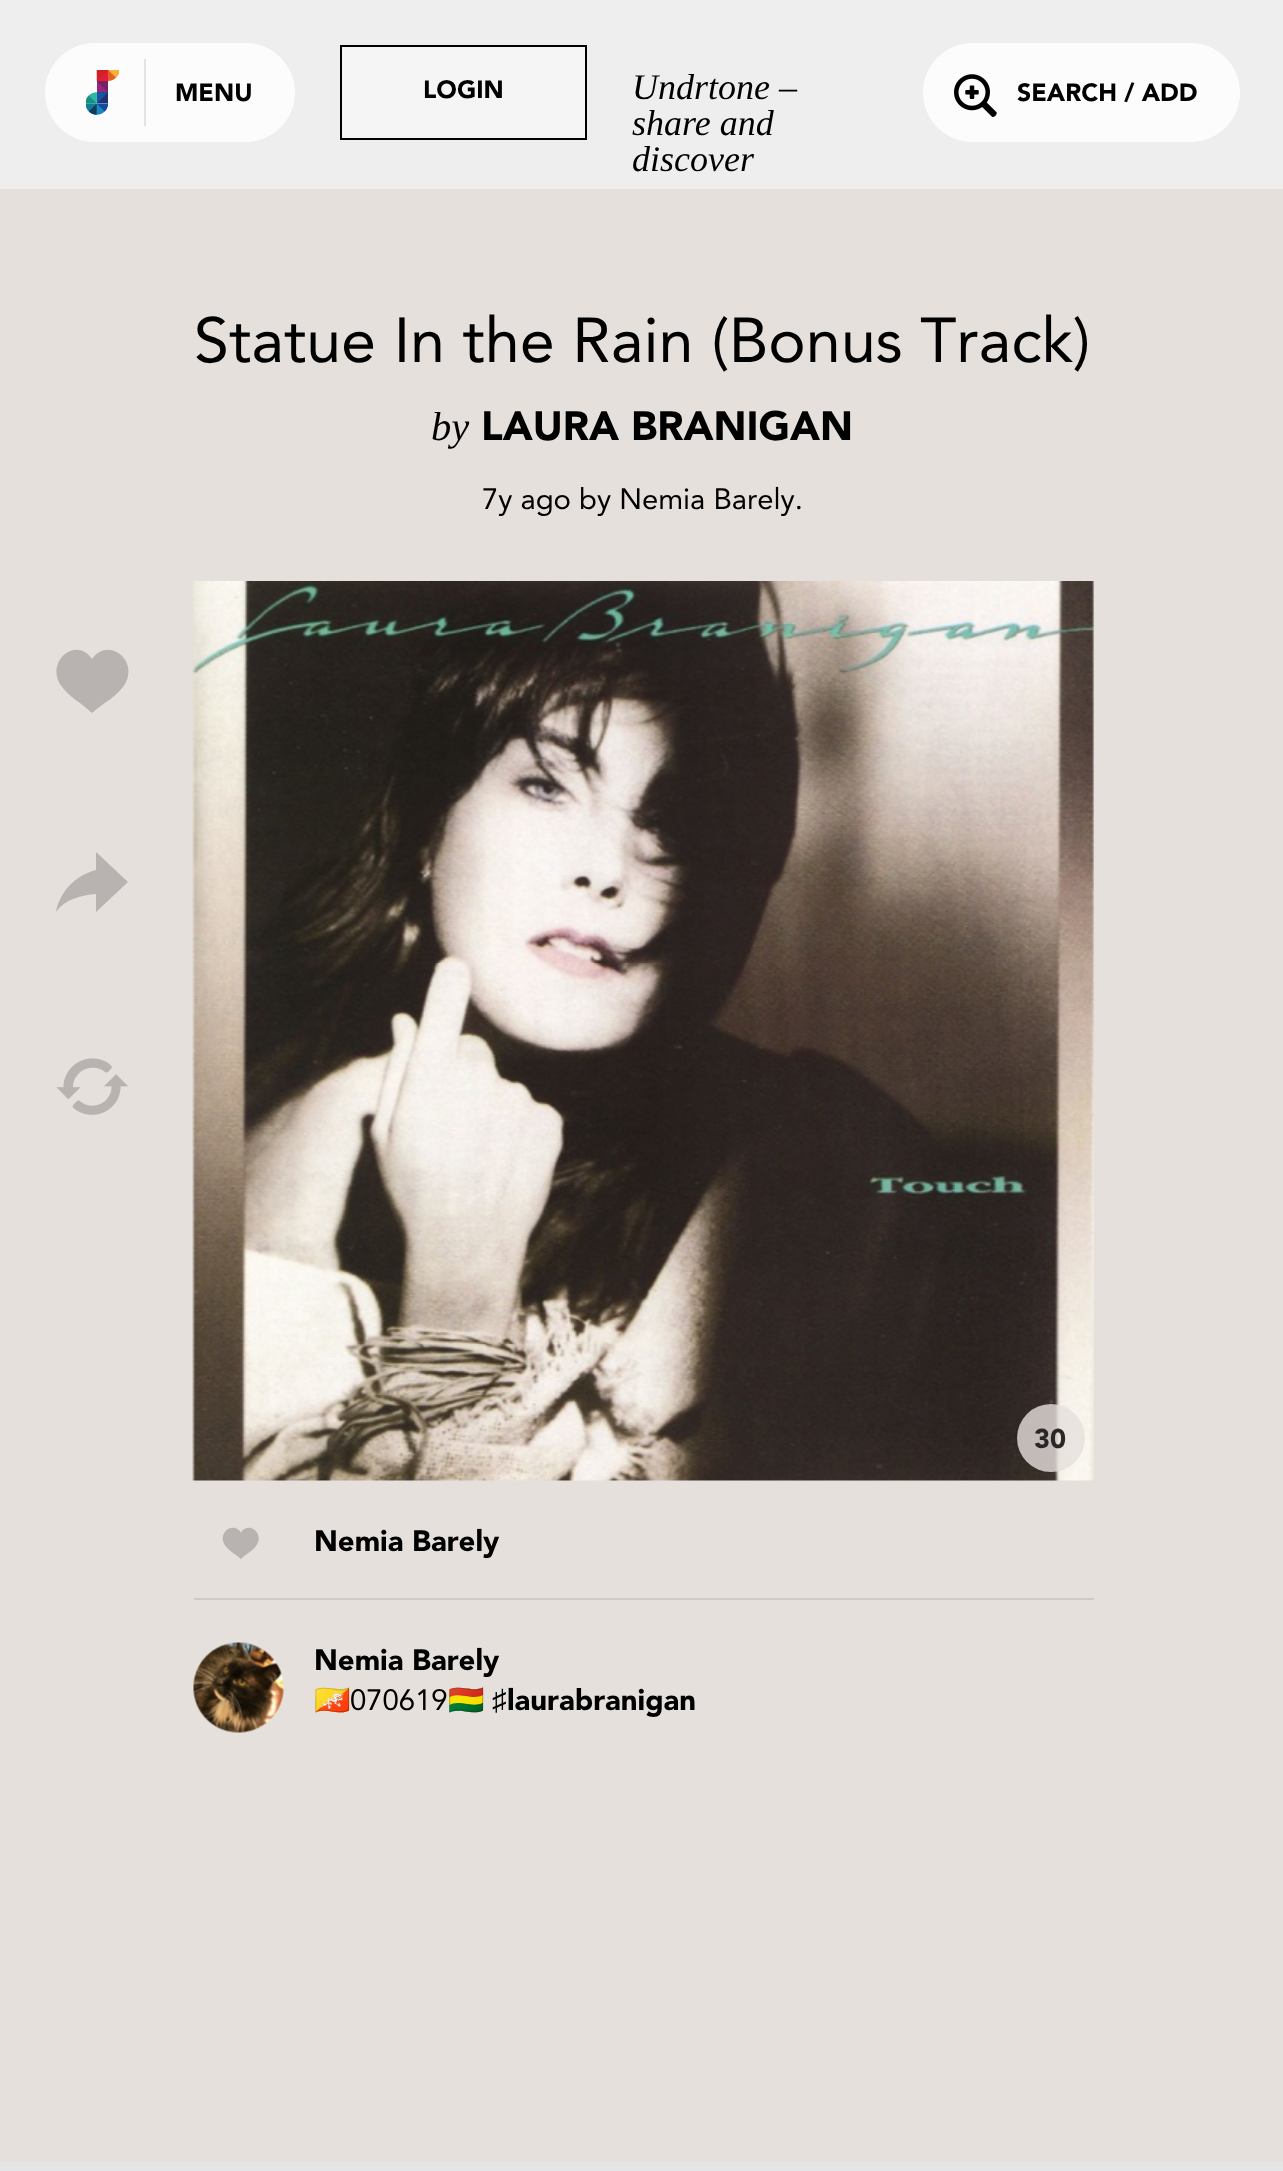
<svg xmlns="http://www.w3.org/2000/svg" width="1283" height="2171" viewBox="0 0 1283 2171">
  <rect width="100%" height="100%" fill="#e6e0dc"/>
  <rect x="0" y="0" width="1283" height="189" fill="#eeeeee"/>
  <rect x="45" y="43" width="250" height="99" rx="49.5" fill="#fcfcfc"/>
  <image x="86" y="70" width="33" height="45" href="img1.png"/>
  <rect x="144" y="59" width="2" height="67" fill="#e3e3e3"/>
  <text x="175" y="101" font-family="Avenir" font-size="24.75" font-weight="900" fill="#000000">MENU</text>
  <rect x="341" y="46" width="245" height="93" fill="#f5f5f5" stroke="#000000" stroke-width="2"/>
  <text x="423" y="98" font-family="Avenir" font-size="24.75" font-weight="900" fill="#000000">LOGIN</text>
  <text x="632" y="99" font-family="Liberation Serif" font-size="36" font-style="italic" fill="#000000">Undrtone –</text>
  <text x="632" y="135" font-family="Liberation Serif" font-size="36" font-style="italic" fill="#000000">share and</text>
  <text x="632" y="171" font-family="Liberation Serif" font-size="36" font-style="italic" fill="#000000">discover</text>
  <rect x="923" y="43" width="317" height="99" rx="49.5" fill="#fcfcfc"/>
  <image x="954" y="74" width="43" height="43" href="img2.png"/>
  <text x="1017" y="101" font-family="Avenir" font-size="24.75" font-weight="900" fill="#000000">SEARCH / ADD</text>
  <text x="194" y="362" font-family="Avenir" font-size="63" fill="#000000">Statue In the Rain (Bonus Track)</text>
  <text x="431" y="440" font-family="Liberation Serif" font-size="40.5" font-style="italic" fill="#000000">by</text>
  <text x="481" y="440" font-family="Avenir" font-size="40.5" font-weight="900" fill="#000000">LAURA BRANIGAN</text>
  <text x="482" y="509" font-family="Avenir" font-size="29.25" fill="#000000">7y ago by Nemia Barely.</text>
  <path d="M92 659C77 636 46 660 60 684C68 697 82 703 92 713C103 703 117 697 125 684C139 660 108 636 92 659Z" fill="#b8b3b0"/>
  <path d="M128 882L96 852V870C76 875 60 891 56 912C65 899 82 895 96 894V912Z" fill="#b8b3b0"/>
  <image x="56" y="1058" width="72" height="57" href="img3.png"/>
  <image x="192" y="581" width="902" height="900" href="img4.png"/>
  <circle cx="1051" cy="1438" r="34" fill="#e6e0dc" fill-opacity="0.8"/>
  <text x="1034" y="1448" font-family="Avenir" font-size="27" font-weight="900" fill="#292827">30</text>
  <path d="M241 1532.5C233 1521 217.5 1532.5 224.5 1544.5C228.5 1551 235.5 1554 241 1559C246 1554 253 1551 257 1544.5C264 1532.5 248.5 1521 241 1532.5Z" fill="#b8b3b0"/>
  <text x="314" y="1551" font-family="Avenir" font-size="29.25" font-weight="900" fill="#000000">Nemia Barely</text>
  <rect x="194" y="1598" width="900" height="2" fill="#cfcac6"/>
  <circle cx="239" cy="1688" r="45" fill="#e6dfd5"/>
  <image x="193" y="1642" width="91" height="91" href="img5.png"/>
  <text x="314" y="1670" font-family="Avenir" font-size="29.25" font-weight="900" fill="#000000">Nemia Barely</text>
  <text x="314" y="1710" font-family="Noto Color Emoji" font-size="29.25" fill="#000000">🇧🇹</text>
  <text x="350" y="1710" font-family="Avenir" font-size="29.25" fill="#000000">070619</text>
  <text x="448" y="1710" font-family="Noto Color Emoji" font-size="29.25" fill="#000000">🇧🇴</text>
  <text x="492" y="1710" font-family="Liberation Serif" font-size="29.25" fill="#000000">♯</text>
  <text x="507" y="1710" font-family="Avenir" font-size="29.25" font-weight="900" fill="#000000">laurabranigan</text>
  <rect x="0" y="2162" width="1283" height="9" fill="#e5e5e5"/>
</svg>
